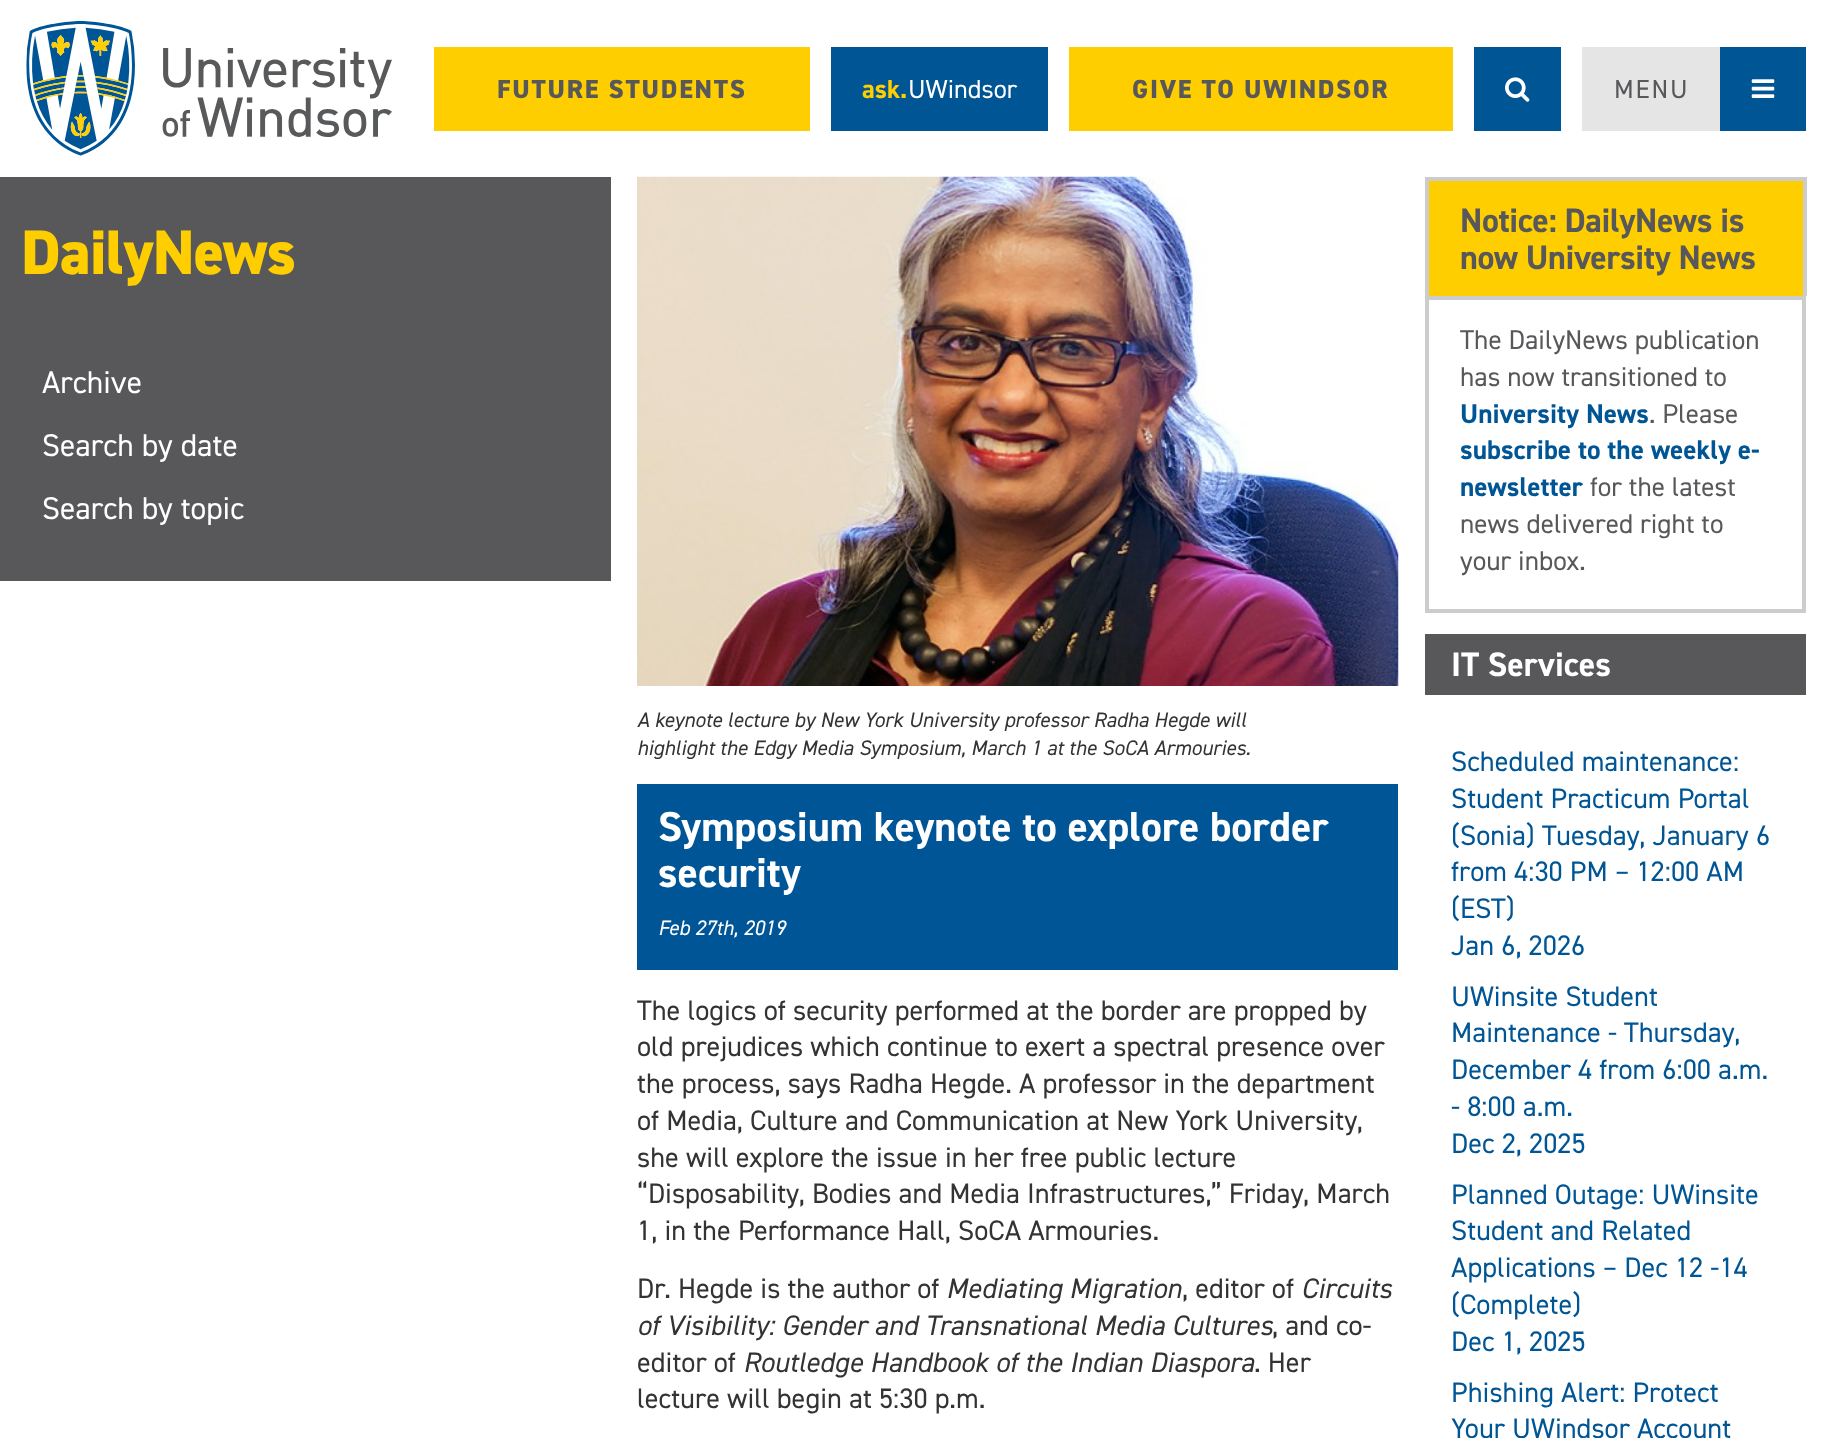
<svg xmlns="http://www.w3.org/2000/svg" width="1832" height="1438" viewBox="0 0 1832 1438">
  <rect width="100%" height="100%" fill="#ffffff"/>
  <image x="26" y="21" width="366" height="135" href="img1.png"/>
  <rect x="434" y="47" width="376" height="84" fill="#ffce00"/>
  <text x="497" y="98" font-family="'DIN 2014'" font-size="26.25" font-weight="800" letter-spacing="1.75" fill="#58585b">FUTURE STUDENTS</text>
  <rect x="831" y="47" width="217" height="84" fill="#005595"/>
  <text x="862" y="98" font-family="'DIN 2014'" font-size="26.25" font-weight="bold" fill="#ffce00">ask.</text>
  <text x="908" y="98" font-family="'DIN 2014'" font-size="26.25" fill="#ffffff">UWindsor</text>
  <rect x="1069" y="47" width="384" height="84" fill="#ffce00"/>
  <text x="1132" y="98" font-family="'DIN 2014'" font-size="26.25" font-weight="800" letter-spacing="1.75" fill="#58585b">GIVE TO UWINDSOR</text>
  <rect x="1474" y="47" width="87" height="84" fill="#005595"/>
  <image x="1505" y="77" width="25" height="25" href="img2.png"/>
  <rect x="1582" y="47" width="138" height="84" fill="#e5e5e5"/>
  <text x="1614" y="98" font-family="'DIN 2014'" font-size="26.25" letter-spacing="1.75" fill="#58585b">MENU</text>
  <rect x="1720" y="47" width="86" height="84" fill="#005595"/>
  <image x="1751" y="79" width="24" height="19" href="img3.png"/>
  <rect x="0" y="177" width="611" height="404" fill="#58585b"/>
  <text x="21" y="274" font-family="'DIN 2014'" font-size="63" font-weight="800" letter-spacing="-0.9" fill="#ffce00">DailyNews</text>
  <text x="42" y="393" font-family="'DIN 2014'" font-size="31.5" fill="#ffffff">Archive</text>
  <text x="42" y="456" font-family="'DIN 2014'" font-size="31.5" fill="#ffffff">Search by date</text>
  <text x="42" y="519" font-family="'DIN 2014'" font-size="31.5" fill="#ffffff">Search by topic</text>
  <image x="637" y="176" width="762" height="510" href="img4.png"/>
  <text x="637" y="727" font-family="'DIN 2014'" font-size="21" font-style="italic" fill="#333333">A keynote lecture by New York University professor Radha Hegde will</text>
  <text x="637" y="755" font-family="'DIN 2014'" font-size="21" font-style="italic" fill="#333333">highlight the Edgy Media Symposium, March 1 at the SoCA Armouries.</text>
  <rect x="637" y="784" width="761" height="186" fill="#005596"/>
  <text x="658" y="841" font-family="'DIN 2014'" font-size="42" font-weight="bold" fill="#ffffff">Symposium keynote to explore border</text>
  <text x="658" y="887" font-family="'DIN 2014'" font-size="42" font-weight="bold" fill="#ffffff">security</text>
  <text x="658" y="935" font-family="'DIN 2014'" font-size="21" font-style="italic" fill="#ffffff">Feb 27th, 2019</text>
  <text x="637" y="1020" font-family="'DIN 2014'" font-size="28.35" fill="#333333">The logics of security performed at the border are propped by</text>
  <text x="637" y="1056" font-family="'DIN 2014'" font-size="28.35" fill="#333333">old prejudices which continue to exert a spectral presence over</text>
  <text x="637" y="1093" font-family="'DIN 2014'" font-size="28.35" fill="#333333">the process, says Radha Hegde. A professor in the department</text>
  <text x="637" y="1130" font-family="'DIN 2014'" font-size="28.35" fill="#333333">of Media, Culture and Communication at New York University,</text>
  <text x="637" y="1167" font-family="'DIN 2014'" font-size="28.35" fill="#333333">she will explore the issue in her free public lecture</text>
  <text x="637" y="1203" font-family="'DIN 2014'" font-size="28.35" fill="#333333">“Disposability, Bodies and Media Infrastructures,” Friday, March</text>
  <text x="637" y="1240" font-family="'DIN 2014'" font-size="28.35" fill="#333333">1, in the Performance Hall, SoCA Armouries.</text>
  <text x="637" y="1298" font-family="'DIN 2014'" font-size="28.35" fill="#333333">Dr. Hegde is the author of</text>
  <text x="946" y="1298" font-family="'DIN 2014'" font-size="28.35" font-style="italic" fill="#333333">Mediating Migration</text>
  <text x="1182" y="1298" font-family="'DIN 2014'" font-size="28.35" fill="#333333">, editor of</text>
  <text x="1301" y="1298" font-family="'DIN 2014'" font-size="28.35" font-style="italic" fill="#333333">Circuits</text>
  <text x="637" y="1335" font-family="'DIN 2014'" font-size="28.35" font-style="italic" fill="#333333">of Visibility: Gender and Transnational Media Cultures</text>
  <text x="1272" y="1335" font-family="'DIN 2014'" font-size="28.35" fill="#333333">, and co-</text>
  <text x="637" y="1372" font-family="'DIN 2014'" font-size="28.35" fill="#333333">editor of</text>
  <text x="743" y="1372" font-family="'DIN 2014'" font-size="28.35" font-style="italic" fill="#333333">Routledge Handbook of the Indian Diaspora</text>
  <text x="1254" y="1372" font-family="'DIN 2014'" font-size="28.35" fill="#333333">. Her</text>
  <text x="637" y="1408" font-family="'DIN 2014'" font-size="28.35" fill="#333333">lecture will begin at 5:30 p.m.</text>
  <rect x="1429" y="181" width="374" height="115" fill="#ffce00"/>
  <rect x="1425" y="177" width="381" height="4" fill="#cccccc"/>
  <rect x="1803" y="177" width="4" height="119" fill="#cccccc"/>
  <rect x="1425" y="177" width="4" height="119" fill="#cccccc"/>
  <text x="1460" y="232" font-family="'DIN 2014'" font-size="34" font-weight="bold" letter-spacing="-0.4" fill="#58585b">Notice: DailyNews is</text>
  <text x="1460" y="269" font-family="'DIN 2014'" font-size="34" font-weight="bold" letter-spacing="-0.4" fill="#58585b">now University News</text>
  <rect x="1427" y="298" width="377" height="313" fill="none" stroke="#cccccc" stroke-width="4"/>
  <text x="1460" y="349" font-family="'DIN 2014'" font-size="27.25" fill="#58585b">The DailyNews publication</text>
  <text x="1460" y="386" font-family="'DIN 2014'" font-size="27.25" fill="#58585b">has now transitioned to</text>
  <text x="1460" y="423" font-family="'DIN 2014'" font-size="27.25" font-weight="bold" fill="#005595">University News</text>
  <text x="1649" y="423" font-family="'DIN 2014'" font-size="27.25" fill="#58585b">. Please</text>
  <text x="1460" y="459" font-family="'DIN 2014'" font-size="27.25" font-weight="bold" fill="#005595">subscribe to the weekly e-</text>
  <text x="1460" y="496" font-family="'DIN 2014'" font-size="27.25" font-weight="bold" fill="#005595">newsletter</text>
  <text x="1590" y="496" font-family="'DIN 2014'" font-size="27.25" fill="#58585b">for the latest</text>
  <text x="1460" y="533" font-family="'DIN 2014'" font-size="27.25" fill="#58585b">news delivered right to</text>
  <text x="1460" y="570" font-family="'DIN 2014'" font-size="27.25" fill="#58585b">your inbox.</text>
  <rect x="1425" y="634" width="381" height="61" fill="#58585b"/>
  <text x="1451" y="676" font-family="'DIN 2014'" font-size="34" font-weight="bold" fill="#ffffff">IT Services</text>
  <text x="1451" y="771" font-family="'DIN 2014'" font-size="28.35" fill="#005595">Scheduled maintenance:</text>
  <text x="1451" y="808" font-family="'DIN 2014'" font-size="28.35" fill="#005595">Student Practicum Portal</text>
  <text x="1451" y="845" font-family="'DIN 2014'" font-size="28.35" fill="#005595">(Sonia) Tuesday, January 6</text>
  <text x="1451" y="881" font-family="'DIN 2014'" font-size="28.35" fill="#005595">from 4:30 PM – 12:00 AM</text>
  <text x="1451" y="918" font-family="'DIN 2014'" font-size="28.35" fill="#005595">(EST)</text>
  <text x="1451" y="955" font-family="'DIN 2014'" font-size="28.35" fill="#005595">Jan 6, 2026</text>
  <text x="1451" y="1006" font-family="'DIN 2014'" font-size="28.35" fill="#005595">UWinsite Student</text>
  <text x="1451" y="1042" font-family="'DIN 2014'" font-size="28.35" fill="#005595">Maintenance - Thursday,</text>
  <text x="1451" y="1079" font-family="'DIN 2014'" font-size="28.35" fill="#005595">December 4 from 6:00 a.m.</text>
  <text x="1451" y="1116" font-family="'DIN 2014'" font-size="28.35" fill="#005595">- 8:00 a.m.</text>
  <text x="1451" y="1153" font-family="'DIN 2014'" font-size="28.35" fill="#005595">Dec 2, 2025</text>
  <text x="1451" y="1204" font-family="'DIN 2014'" font-size="28.35" fill="#005595">Planned Outage: UWinsite</text>
  <text x="1451" y="1240" font-family="'DIN 2014'" font-size="28.35" fill="#005595">Student and Related</text>
  <text x="1451" y="1277" font-family="'DIN 2014'" font-size="28.35" fill="#005595">Applications – Dec 12 -14</text>
  <text x="1451" y="1314" font-family="'DIN 2014'" font-size="28.35" fill="#005595">(Complete)</text>
  <text x="1451" y="1351" font-family="'DIN 2014'" font-size="28.35" fill="#005595">Dec 1, 2025</text>
  <text x="1451" y="1402" font-family="'DIN 2014'" font-size="28.35" fill="#005595">Phishing Alert: Protect</text>
  <text x="1451" y="1438" font-family="'DIN 2014'" font-size="28.35" fill="#005595">Your UWindsor Account</text>
</svg>
